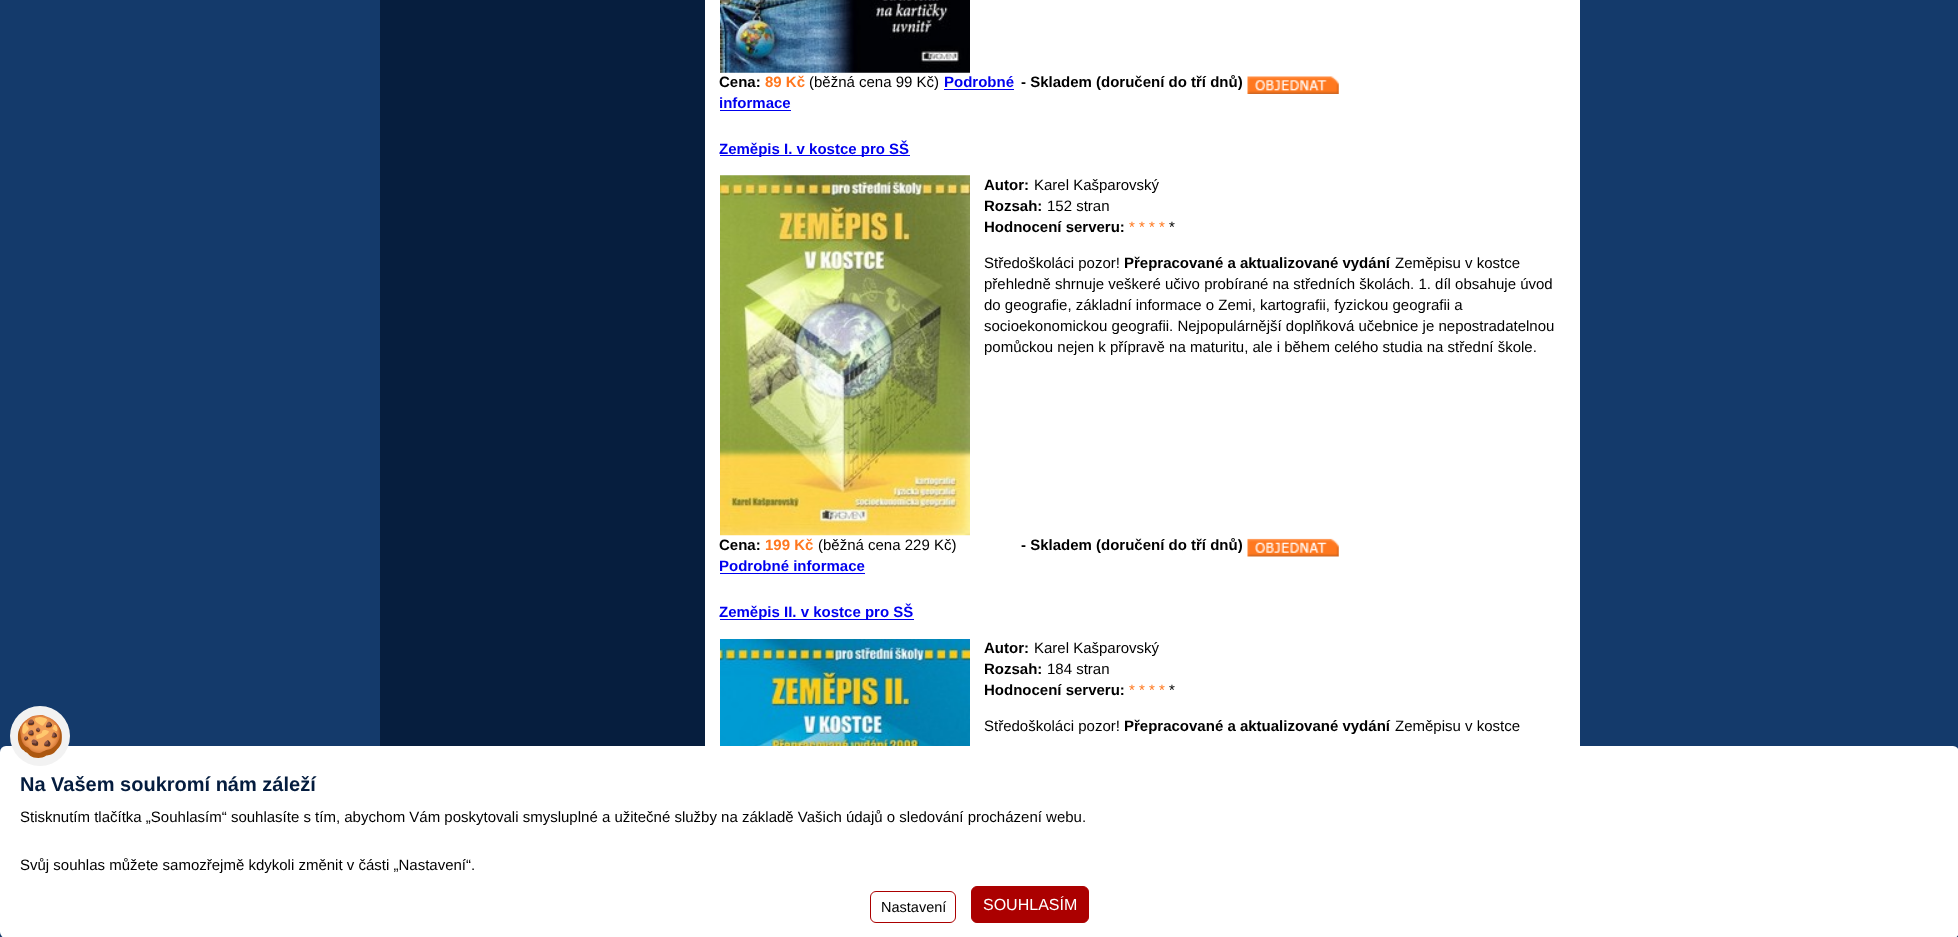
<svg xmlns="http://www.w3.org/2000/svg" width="1958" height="937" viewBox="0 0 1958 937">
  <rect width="100%" height="100%" fill="#143a6b"/>
  <rect x="380" y="0" width="325" height="746" fill="#061e3e"/>
  <rect x="705" y="0" width="875" height="746" fill="#ffffff"/>
  <image x="720" y="0" width="250" height="73" href="img1.png"/>
  <text x="719" y="87" font-family="Liberation Sans" font-size="15" font-weight="bold" fill="#000000">Cena:</text>
  <text x="765" y="87" font-family="Liberation Sans" font-size="15" font-weight="bold" fill="#ff781f">89 Kč</text>
  <text x="809" y="87" font-family="Liberation Sans" font-size="15" fill="#000000">(běžná cena 99 Kč)</text>
  <text x="944" y="87" font-family="Liberation Sans" font-size="15" font-weight="bold" fill="#0000ee">Podrobné</text>
  <rect x="944" y="89" width="70" height="1" fill="#0000ee"/>
  <text x="1021" y="87" font-family="Liberation Sans" font-size="15" font-weight="bold" fill="#000000">- Skladem (doručení do tří dnů)</text>
  <image x="1247" y="76" width="92" height="18" href="img2.png"/>
  <text x="719" y="108" font-family="Liberation Sans" font-size="15" font-weight="bold" fill="#0000ee">informace</text>
  <rect x="720" y="110" width="71" height="1" fill="#0000ee"/>
  <rect x="720" y="155" width="190" height="1" fill="#0000ee"/>
  <text x="719" y="154" font-family="Liberation Sans" font-size="15" font-weight="bold" fill="#0000ee">Zeměpis I. v kostce pro SŠ</text>
  <image x="720" y="175" width="250" height="361" href="img3.png"/>
  <text x="984" y="190" font-family="Liberation Sans" font-size="15" font-weight="bold" fill="#000000">Autor:</text>
  <text x="1034" y="190" font-family="Liberation Sans" font-size="15" fill="#000000">Karel Kašparovský</text>
  <text x="984" y="211" font-family="Liberation Sans" font-size="15" font-weight="bold" fill="#000000">Rozsah:</text>
  <text x="1047" y="211" font-family="Liberation Sans" font-size="15" fill="#000000">152 stran</text>
  <text x="984" y="232" font-family="Liberation Sans" font-size="15" font-weight="bold" fill="#000000">Hodnocení serveru:</text>
  <text x="1129" y="232" font-family="Liberation Sans" font-size="15" fill="#ff781f">* * * *</text>
  <text x="1169" y="232" font-family="Liberation Sans" font-size="15" fill="#000000">*</text>
  <text x="984" y="268" font-family="Liberation Sans" font-size="15" fill="#000000">Středoškoláci pozor!</text>
  <text x="1124" y="268" font-family="Liberation Sans" font-size="15" font-weight="bold" fill="#000000">Přepracované a aktualizované vydání</text>
  <text x="1395" y="268" font-family="Liberation Sans" font-size="15" fill="#000000">Zeměpisu v kostce</text>
  <text x="984" y="289" font-family="Liberation Sans" font-size="15" fill="#000000">přehledně shrnuje veškeré učivo probírané na středních školách. 1. díl obsahuje úvod</text>
  <text x="984" y="310" font-family="Liberation Sans" font-size="15" fill="#000000">do geografie, základní informace o Zemi, kartografii, fyzickou geografii a</text>
  <text x="984" y="331" font-family="Liberation Sans" font-size="15" fill="#000000">socioekonomickou geografii. Nejpopulárnější doplňková učebnice je nepostradatelnou</text>
  <text x="984" y="352" font-family="Liberation Sans" font-size="15" fill="#000000">pomůckou nejen k přípravě na maturitu, ale i během celého studia na střední škole.</text>
  <text x="719" y="550" font-family="Liberation Sans" font-size="15" font-weight="bold" fill="#000000">Cena:</text>
  <text x="765" y="550" font-family="Liberation Sans" font-size="15" font-weight="bold" fill="#ff781f">199 Kč</text>
  <text x="818" y="550" font-family="Liberation Sans" font-size="15" fill="#000000">(běžná cena 229 Kč)</text>
  <text x="1021" y="550" font-family="Liberation Sans" font-size="15" font-weight="bold" fill="#000000">- Skladem (doručení do tří dnů)</text>
  <image x="1247" y="538" width="92" height="19" href="img4.png"/>
  <text x="719" y="571" font-family="Liberation Sans" font-size="15" font-weight="bold" fill="#0000ee">Podrobné informace</text>
  <rect x="720" y="573" width="145" height="1" fill="#0000ee"/>
  <rect x="720" y="619" width="194" height="1" fill="#0000ee"/>
  <text x="719" y="617" font-family="Liberation Sans" font-size="15" font-weight="bold" fill="#0000ee">Zeměpis II. v kostce pro SŠ</text>
  <image x="720" y="639" width="250" height="107" href="img5.png"/>
  <text x="984" y="653" font-family="Liberation Sans" font-size="15" font-weight="bold" fill="#000000">Autor:</text>
  <text x="1034" y="653" font-family="Liberation Sans" font-size="15" fill="#000000">Karel Kašparovský</text>
  <text x="984" y="674" font-family="Liberation Sans" font-size="15" font-weight="bold" fill="#000000">Rozsah:</text>
  <text x="1047" y="674" font-family="Liberation Sans" font-size="15" fill="#000000">184 stran</text>
  <text x="984" y="695" font-family="Liberation Sans" font-size="15" font-weight="bold" fill="#000000">Hodnocení serveru:</text>
  <text x="1129" y="695" font-family="Liberation Sans" font-size="15" fill="#ff781f">* * * *</text>
  <text x="1169" y="695" font-family="Liberation Sans" font-size="15" fill="#000000">*</text>
  <text x="984" y="731" font-family="Liberation Sans" font-size="15" fill="#000000">Středoškoláci pozor!</text>
  <text x="1124" y="731" font-family="Liberation Sans" font-size="15" font-weight="bold" fill="#000000">Přepracované a aktualizované vydání</text>
  <text x="1395" y="731" font-family="Liberation Sans" font-size="15" fill="#000000">Zeměpisu v kostce</text>
  <rect x="0" y="746" width="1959" height="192" rx="6" fill="#ffffff"/>
  <circle cx="40" cy="736" r="30" fill="#f2f2f2"/>
  <text x="15" y="750" font-family="Noto Color Emoji" font-size="40" fill="#000000">🍪</text>
  <text x="20" y="791" font-family="Liberation Sans" font-size="20" font-weight="bold" fill="#041c3e">Na Vašem soukromí nám záleží</text>
  <text x="20" y="822" font-family="Liberation Sans" font-size="15" fill="#000000">Stisknutím tlačítka „Souhlasím“ souhlasíte s tím, abychom Vám poskytovali smysluplné a užitečné služby na základě Vašich údajů o sledování procházení webu.</text>
  <text x="20" y="870" font-family="Liberation Sans" font-size="15" fill="#000000">Svůj souhlas můžete samozřejmě kdykoli změnit v části „Nastavení“.</text>
  <rect x="870.5" y="891.5" width="85" height="31" rx="5.5" fill="none" stroke="#ab0000"/>
  <text x="881" y="912" font-family="Liberation Sans" font-size="14.5" fill="#000000">Nastavení</text>
  <rect x="971.5" y="886.5" width="117" height="36" rx="5.5" fill="#ab0000" stroke="#ab0000"/>
  <text x="983" y="910" font-family="Liberation Sans" font-size="16" fill="#ffffff">SOUHLASÍM</text>
</svg>
